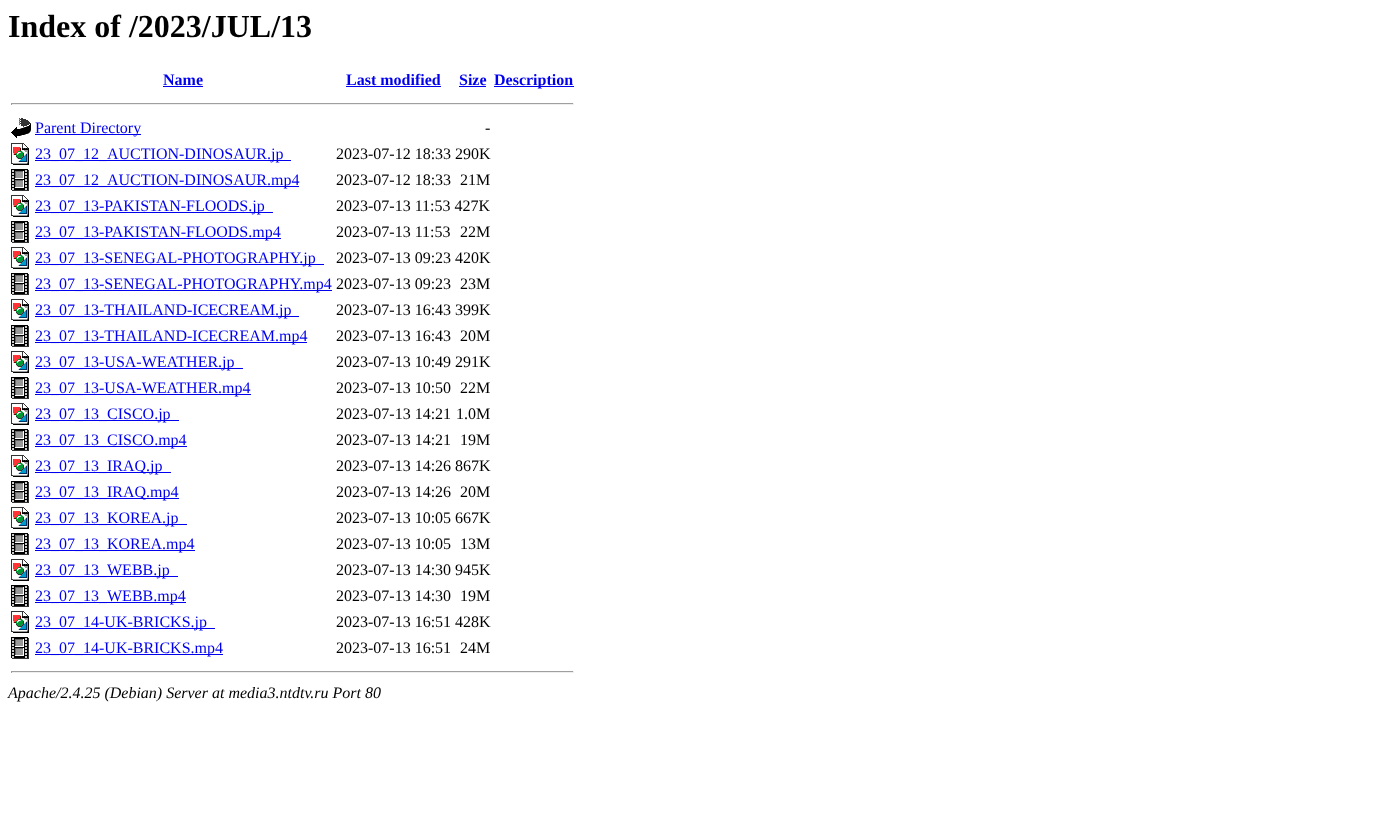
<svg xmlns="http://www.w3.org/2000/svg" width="1399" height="821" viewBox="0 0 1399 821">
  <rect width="100%" height="100%" fill="#ffffff"/>
  <text x="8" y="37" font-family="Liberation Serif" font-size="32" font-weight="bold" fill="#000000">Index of /2023/JUL/13</text>
  <text x="163" y="85" font-family="Liberation Serif" font-size="16" font-weight="bold" fill="#0000ee">Name</text>
  <rect x="163" y="86" width="40" height="1" fill="#0000ee"/>
  <text x="346" y="85" font-family="Liberation Serif" font-size="16" font-weight="bold" fill="#0000ee">Last modified</text>
  <rect x="346" y="86" width="95" height="1" fill="#0000ee"/>
  <text x="459" y="85" font-family="Liberation Serif" font-size="16" font-weight="bold" fill="#0000ee">Size</text>
  <rect x="459" y="86" width="27" height="1" fill="#0000ee"/>
  <rect x="494" y="86" width="80" height="1" fill="#0000ee"/>
  <text x="494" y="85" font-family="Liberation Serif" font-size="16" font-weight="bold" fill="#0000ee">Description</text>
  <rect x="11" y="103" width="563" height="1" fill="#9f9f9f"/>
  <rect x="573" y="103" width="1" height="2" fill="#eeeeee"/>
  <rect x="11" y="104" width="563" height="1" fill="#eeeeee"/>
  <rect x="11" y="103" width="1" height="2" fill="#9f9f9f"/>
  <image x="11" y="118" width="20" height="20" href="img1.png"/>
  <rect x="35" y="134" width="106" height="1" fill="#0000ee"/>
  <text x="35" y="133" font-family="Liberation Serif" font-size="16" fill="#0000ee">Parent Directory</text>
  <text x="485" y="133" font-family="Liberation Serif" font-size="16" fill="#000000">-</text>
  <image x="11" y="143" width="18" height="22" href="img2.png"/>
  <rect x="35" y="160" width="256" height="1" fill="#0000ee"/>
  <text x="35" y="159" font-family="Liberation Serif" font-size="16" fill="#0000ee">23_07_12_AUCTION-DINOSAUR.jp</text>
  <text x="336" y="159" font-family="Liberation Serif" font-size="16" fill="#000000">2023-07-12 18:33 290K</text>
  <image x="11" y="169" width="18" height="22" href="img3.png"/>
  <rect x="35" y="186" width="264" height="1" fill="#0000ee"/>
  <text x="35" y="185" font-family="Liberation Serif" font-size="16" fill="#0000ee">23_07_12_AUCTION-DINOSAUR.mp4</text>
  <text x="336" y="185" font-family="Liberation Serif" font-size="16" fill="#000000">2023-07-12 18:33</text>
  <text x="460" y="185" font-family="Liberation Serif" font-size="16" fill="#000000">21M</text>
  <image x="11" y="195" width="18" height="22" href="img2.png"/>
  <rect x="35" y="212" width="238" height="1" fill="#0000ee"/>
  <text x="35" y="211" font-family="Liberation Serif" font-size="16" fill="#0000ee">23_07_13-PAKISTAN-FLOODS.jp</text>
  <text x="336" y="211" font-family="Liberation Serif" font-size="16" fill="#000000">2023-07-13 11:53 427K</text>
  <image x="11" y="221" width="18" height="22" href="img3.png"/>
  <rect x="35" y="238" width="246" height="1" fill="#0000ee"/>
  <text x="35" y="237" font-family="Liberation Serif" font-size="16" fill="#0000ee">23_07_13-PAKISTAN-FLOODS.mp4</text>
  <text x="336" y="237" font-family="Liberation Serif" font-size="16" fill="#000000">2023-07-13 11:53</text>
  <text x="460" y="237" font-family="Liberation Serif" font-size="16" fill="#000000">22M</text>
  <image x="11" y="247" width="18" height="22" href="img2.png"/>
  <rect x="35" y="264" width="289" height="1" fill="#0000ee"/>
  <text x="35" y="263" font-family="Liberation Serif" font-size="16" fill="#0000ee">23_07_13-SENEGAL-PHOTOGRAPHY.jp</text>
  <text x="336" y="263" font-family="Liberation Serif" font-size="16" fill="#000000">2023-07-13 09:23 420K</text>
  <image x="11" y="273" width="18" height="22" href="img3.png"/>
  <rect x="35" y="290" width="297" height="1" fill="#0000ee"/>
  <text x="35" y="289" font-family="Liberation Serif" font-size="16" fill="#0000ee">23_07_13-SENEGAL-PHOTOGRAPHY.mp4</text>
  <text x="336" y="289" font-family="Liberation Serif" font-size="16" fill="#000000">2023-07-13 09:23</text>
  <text x="460" y="289" font-family="Liberation Serif" font-size="16" fill="#000000">23M</text>
  <image x="11" y="299" width="18" height="22" href="img2.png"/>
  <rect x="35" y="316" width="264" height="1" fill="#0000ee"/>
  <text x="35" y="315" font-family="Liberation Serif" font-size="16" fill="#0000ee">23_07_13-THAILAND-ICECREAM.jp</text>
  <text x="336" y="315" font-family="Liberation Serif" font-size="16" fill="#000000">2023-07-13 16:43 399K</text>
  <image x="11" y="325" width="18" height="22" href="img3.png"/>
  <rect x="35" y="342" width="272" height="1" fill="#0000ee"/>
  <text x="35" y="341" font-family="Liberation Serif" font-size="16" fill="#0000ee">23_07_13-THAILAND-ICECREAM.mp4</text>
  <text x="336" y="341" font-family="Liberation Serif" font-size="16" fill="#000000">2023-07-13 16:43</text>
  <text x="460" y="341" font-family="Liberation Serif" font-size="16" fill="#000000">20M</text>
  <image x="11" y="351" width="18" height="22" href="img2.png"/>
  <rect x="35" y="368" width="208" height="1" fill="#0000ee"/>
  <text x="35" y="367" font-family="Liberation Serif" font-size="16" fill="#0000ee">23_07_13-USA-WEATHER.jp</text>
  <text x="336" y="367" font-family="Liberation Serif" font-size="16" fill="#000000">2023-07-13 10:49 291K</text>
  <image x="11" y="377" width="18" height="22" href="img3.png"/>
  <rect x="35" y="394" width="216" height="1" fill="#0000ee"/>
  <text x="35" y="393" font-family="Liberation Serif" font-size="16" fill="#0000ee">23_07_13-USA-WEATHER.mp4</text>
  <text x="336" y="393" font-family="Liberation Serif" font-size="16" fill="#000000">2023-07-13 10:50</text>
  <text x="460" y="393" font-family="Liberation Serif" font-size="16" fill="#000000">22M</text>
  <image x="11" y="403" width="18" height="22" href="img2.png"/>
  <rect x="35" y="420" width="144" height="1" fill="#0000ee"/>
  <text x="35" y="419" font-family="Liberation Serif" font-size="16" fill="#0000ee">23_07_13_CISCO.jp</text>
  <text x="336" y="419" font-family="Liberation Serif" font-size="16" fill="#000000">2023-07-13 14:21</text>
  <text x="456" y="419" font-family="Liberation Serif" font-size="16" fill="#000000">1.0M</text>
  <image x="11" y="429" width="18" height="22" href="img3.png"/>
  <rect x="35" y="446" width="152" height="1" fill="#0000ee"/>
  <text x="35" y="445" font-family="Liberation Serif" font-size="16" fill="#0000ee">23_07_13_CISCO.mp4</text>
  <text x="336" y="445" font-family="Liberation Serif" font-size="16" fill="#000000">2023-07-13 14:21</text>
  <text x="460" y="445" font-family="Liberation Serif" font-size="16" fill="#000000">19M</text>
  <image x="11" y="455" width="18" height="22" href="img2.png"/>
  <rect x="35" y="472" width="136" height="1" fill="#0000ee"/>
  <text x="35" y="471" font-family="Liberation Serif" font-size="16" fill="#0000ee">23_07_13_IRAQ.jp</text>
  <text x="336" y="471" font-family="Liberation Serif" font-size="16" fill="#000000">2023-07-13 14:26 867K</text>
  <image x="11" y="481" width="18" height="22" href="img3.png"/>
  <rect x="35" y="498" width="144" height="1" fill="#0000ee"/>
  <text x="35" y="497" font-family="Liberation Serif" font-size="16" fill="#0000ee">23_07_13_IRAQ.mp4</text>
  <text x="336" y="497" font-family="Liberation Serif" font-size="16" fill="#000000">2023-07-13 14:26</text>
  <text x="460" y="497" font-family="Liberation Serif" font-size="16" fill="#000000">20M</text>
  <image x="11" y="507" width="18" height="22" href="img2.png"/>
  <rect x="35" y="524" width="152" height="1" fill="#0000ee"/>
  <text x="35" y="523" font-family="Liberation Serif" font-size="16" fill="#0000ee">23_07_13_KOREA.jp</text>
  <text x="336" y="523" font-family="Liberation Serif" font-size="16" fill="#000000">2023-07-13 10:05 667K</text>
  <image x="11" y="533" width="18" height="22" href="img3.png"/>
  <rect x="35" y="550" width="160" height="1" fill="#0000ee"/>
  <text x="35" y="549" font-family="Liberation Serif" font-size="16" fill="#0000ee">23_07_13_KOREA.mp4</text>
  <text x="336" y="549" font-family="Liberation Serif" font-size="16" fill="#000000">2023-07-13 10:05</text>
  <text x="460" y="549" font-family="Liberation Serif" font-size="16" fill="#000000">13M</text>
  <image x="11" y="559" width="18" height="22" href="img2.png"/>
  <rect x="35" y="576" width="143" height="1" fill="#0000ee"/>
  <text x="35" y="575" font-family="Liberation Serif" font-size="16" fill="#0000ee">23_07_13_WEBB.jp</text>
  <text x="336" y="575" font-family="Liberation Serif" font-size="16" fill="#000000">2023-07-13 14:30 945K</text>
  <image x="11" y="585" width="18" height="22" href="img3.png"/>
  <rect x="35" y="602" width="151" height="1" fill="#0000ee"/>
  <text x="35" y="601" font-family="Liberation Serif" font-size="16" fill="#0000ee">23_07_13_WEBB.mp4</text>
  <text x="336" y="601" font-family="Liberation Serif" font-size="16" fill="#000000">2023-07-13 14:30</text>
  <text x="460" y="601" font-family="Liberation Serif" font-size="16" fill="#000000">19M</text>
  <image x="11" y="611" width="18" height="22" href="img2.png"/>
  <rect x="35" y="628" width="180" height="1" fill="#0000ee"/>
  <text x="35" y="627" font-family="Liberation Serif" font-size="16" fill="#0000ee">23_07_14-UK-BRICKS.jp</text>
  <text x="336" y="627" font-family="Liberation Serif" font-size="16" fill="#000000">2023-07-13 16:51 428K</text>
  <image x="11" y="637" width="18" height="22" href="img3.png"/>
  <rect x="35" y="654" width="188" height="1" fill="#0000ee"/>
  <text x="35" y="653" font-family="Liberation Serif" font-size="16" fill="#0000ee">23_07_14-UK-BRICKS.mp4</text>
  <text x="336" y="653" font-family="Liberation Serif" font-size="16" fill="#000000">2023-07-13 16:51</text>
  <text x="460" y="653" font-family="Liberation Serif" font-size="16" fill="#000000">24M</text>
  <rect x="11" y="671" width="563" height="1" fill="#9f9f9f"/>
  <rect x="573" y="671" width="1" height="2" fill="#eeeeee"/>
  <rect x="11" y="672" width="563" height="1" fill="#eeeeee"/>
  <rect x="11" y="671" width="1" height="2" fill="#9f9f9f"/>
  <text x="8" y="698" font-family="Liberation Serif" font-size="16" font-style="italic" fill="#000000">Apache/2.4.25 (Debian) Server at media3.ntdtv.ru Port 80</text>
</svg>
